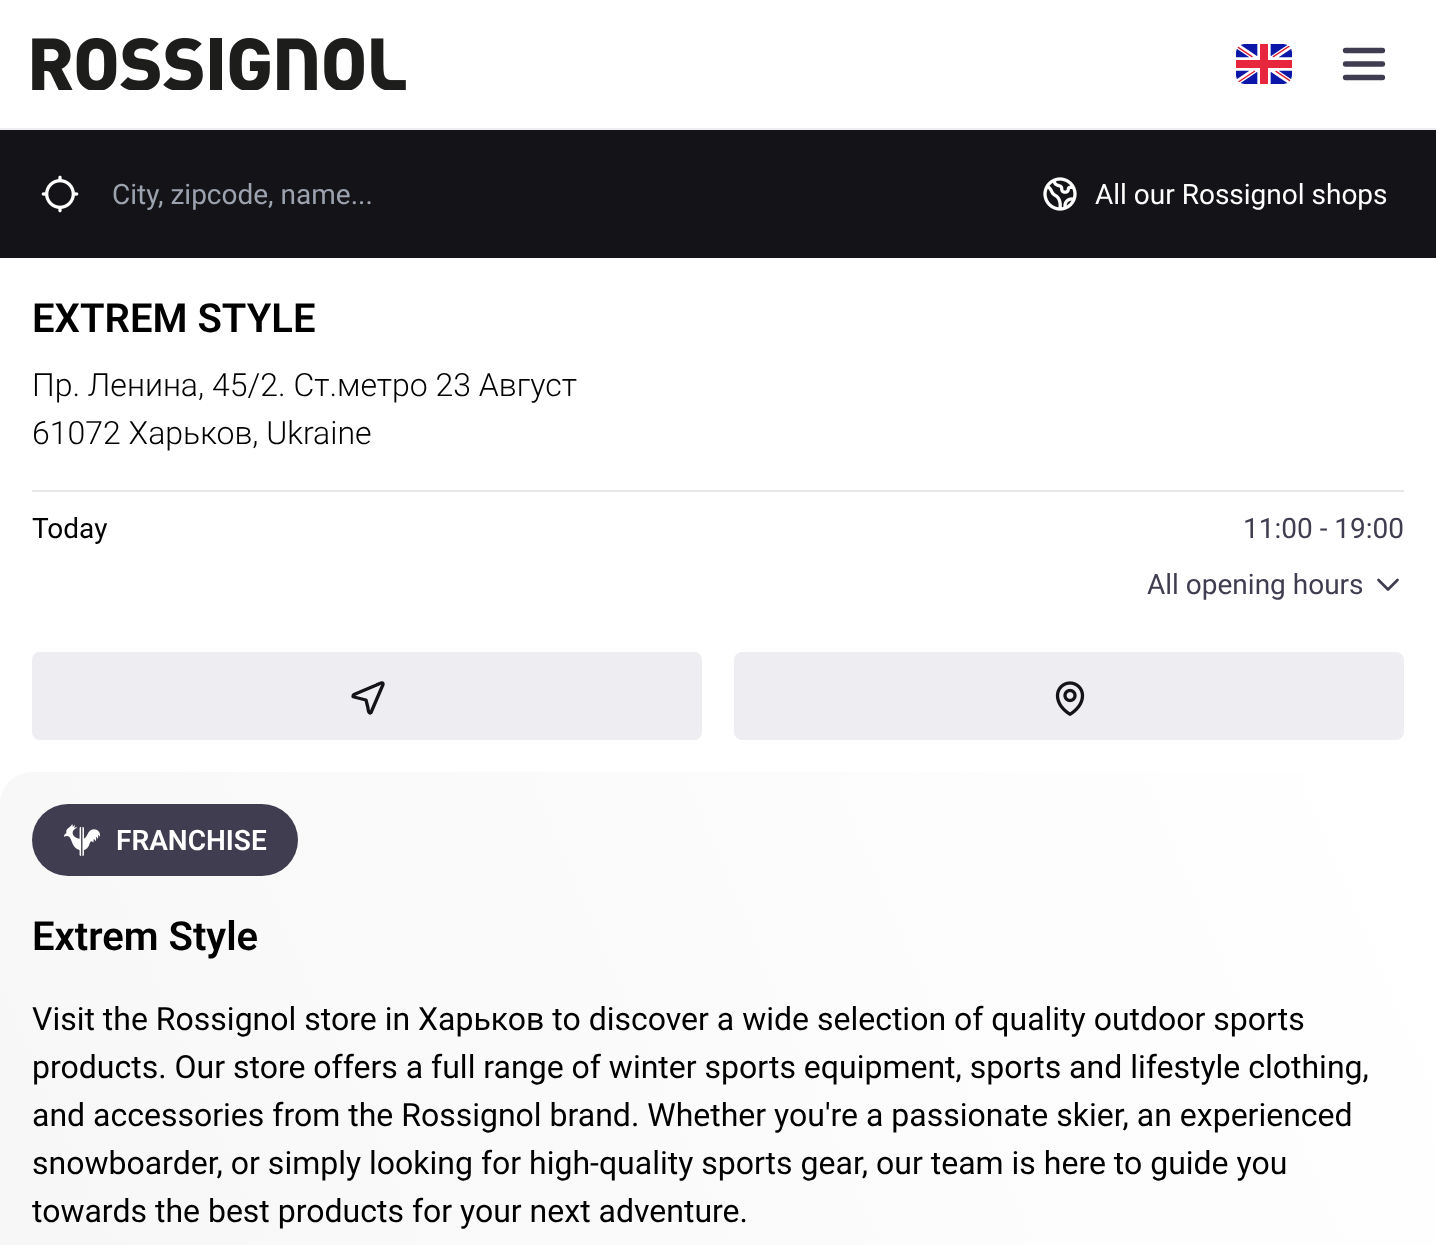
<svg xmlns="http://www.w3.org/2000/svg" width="1436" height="1245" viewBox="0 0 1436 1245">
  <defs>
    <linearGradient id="g1" gradientUnits="userSpaceOnUse" x1="-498" y1="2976" x2="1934" y2="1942"><stop offset="0" stop-color="#f1f1f1"/><stop offset="1" stop-color="#ffffff"/></linearGradient>
  </defs>
  <rect width="100%" height="100%" fill="#ffffff"/>
  <rect x="0" y="128" width="1436" height="2" fill="#eeedf1"/>
  <image x="32" y="38" width="374" height="52" href="img1.png"/>
  <image x="1236" y="44" width="56" height="40" href="img2.png"/>
  <path d="M1345.5 50.5H1382.5M1345.5 64H1382.5M1345.5 77.5H1382.5" fill="none" stroke="#3f3d4f" stroke-width="5.3" stroke-linecap="round" stroke-linejoin="round"/>
  <rect x="0" y="130" width="1436" height="128" fill="#141318"/>
  <image x="41" y="175" width="38" height="38" href="img3.png"/>
  <text x="112" y="204" font-family="Roboto" font-size="28" fill="#9ca3af">City, zipcode, name...</text>
  <image x="1043" y="177" width="34" height="34" href="img4.png"/>
  <text x="1095" y="204" font-family="Roboto" font-size="28" fill="#ffffff">All our Rossignol shops</text>
  <text x="32" y="332" font-family="Roboto" font-size="40" font-weight="600" fill="#000000">EXTREM STYLE</text>
  <text x="32" y="396" font-family="Roboto" font-size="32" font-weight="300" fill="#000000">Пр. Ленина, 45/2. Cт.метро 23 Август</text>
  <text x="32" y="444" font-family="Roboto" font-size="32" font-weight="300" fill="#000000">61072 Харьков, Ukraine</text>
  <rect x="32" y="490" width="1372" height="2" fill="#e5e7eb"/>
  <text x="32" y="538" font-family="Roboto" font-size="28" fill="#000000">Today</text>
  <text x="1243" y="538" font-family="Roboto" font-size="28" fill="#3f3d4f">11:00 - 19:00</text>
  <text x="1147" y="594" font-family="Roboto" font-size="28" fill="#3f3d4f">All opening hours</text>
  <path d="M1397.5 580L1388 589.5L1378.5 580" fill="none" stroke="#3f3d4f" stroke-width="2.7" stroke-linecap="round" stroke-linejoin="round"/>
  <rect x="32" y="652" width="670" height="88" rx="8" fill="#eeedf1"/>
  <path d="M354 694.5L376.5 685C380 683.5 383.5 681.5 383 684.5L371 712.5L370 713C368.5 713 368 709 368 708L366 700L354 697L353 696.5C353 695.5 353 695 354 694.5Z" fill="none" stroke="#141318" stroke-width="3.3" stroke-linecap="round" stroke-linejoin="round"/>
  <rect x="734" y="652" width="670" height="88" rx="8" fill="#eeedf1"/>
  <image x="1055" y="681" width="30" height="35" href="img5.png"/>
  <path d="M32 772H1404C1421.5 772 1436 786.5 1436 804V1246H0V804C0 786.5 14.5 772 32 772Z" fill="url(#g1)"/>
  <rect x="32" y="804" width="266" height="72" rx="36" fill="#3f3d4f"/>
  <image x="64" y="824" width="36" height="32" href="img6.png"/>
  <text x="116" y="850" font-family="Roboto" font-size="28" font-weight="600" fill="#ffffff">FRANCHISE</text>
  <text x="32" y="950" font-family="Roboto" font-size="40" font-weight="600" fill="#000000">Extrem Style</text>
  <text x="32" y="1030" font-family="Roboto" font-size="32" fill="#000000">Visit the Rossignol store in Харьков to discover a wide selection of quality outdoor sports</text>
  <text x="32" y="1078" font-family="Roboto" font-size="32" fill="#000000">products. Our store offers a full range of winter sports equipment, sports and lifestyle clothing,</text>
  <text x="32" y="1126" font-family="Roboto" font-size="32" fill="#000000">and accessories from the Rossignol brand. Whether you're a passionate skier, an experienced</text>
  <text x="32" y="1174" font-family="Roboto" font-size="32" fill="#000000">snowboarder, or simply looking for high-quality sports gear, our team is here to guide you</text>
  <text x="32" y="1222" font-family="Roboto" font-size="32" fill="#000000">towards the best products for your next adventure.</text>
</svg>
